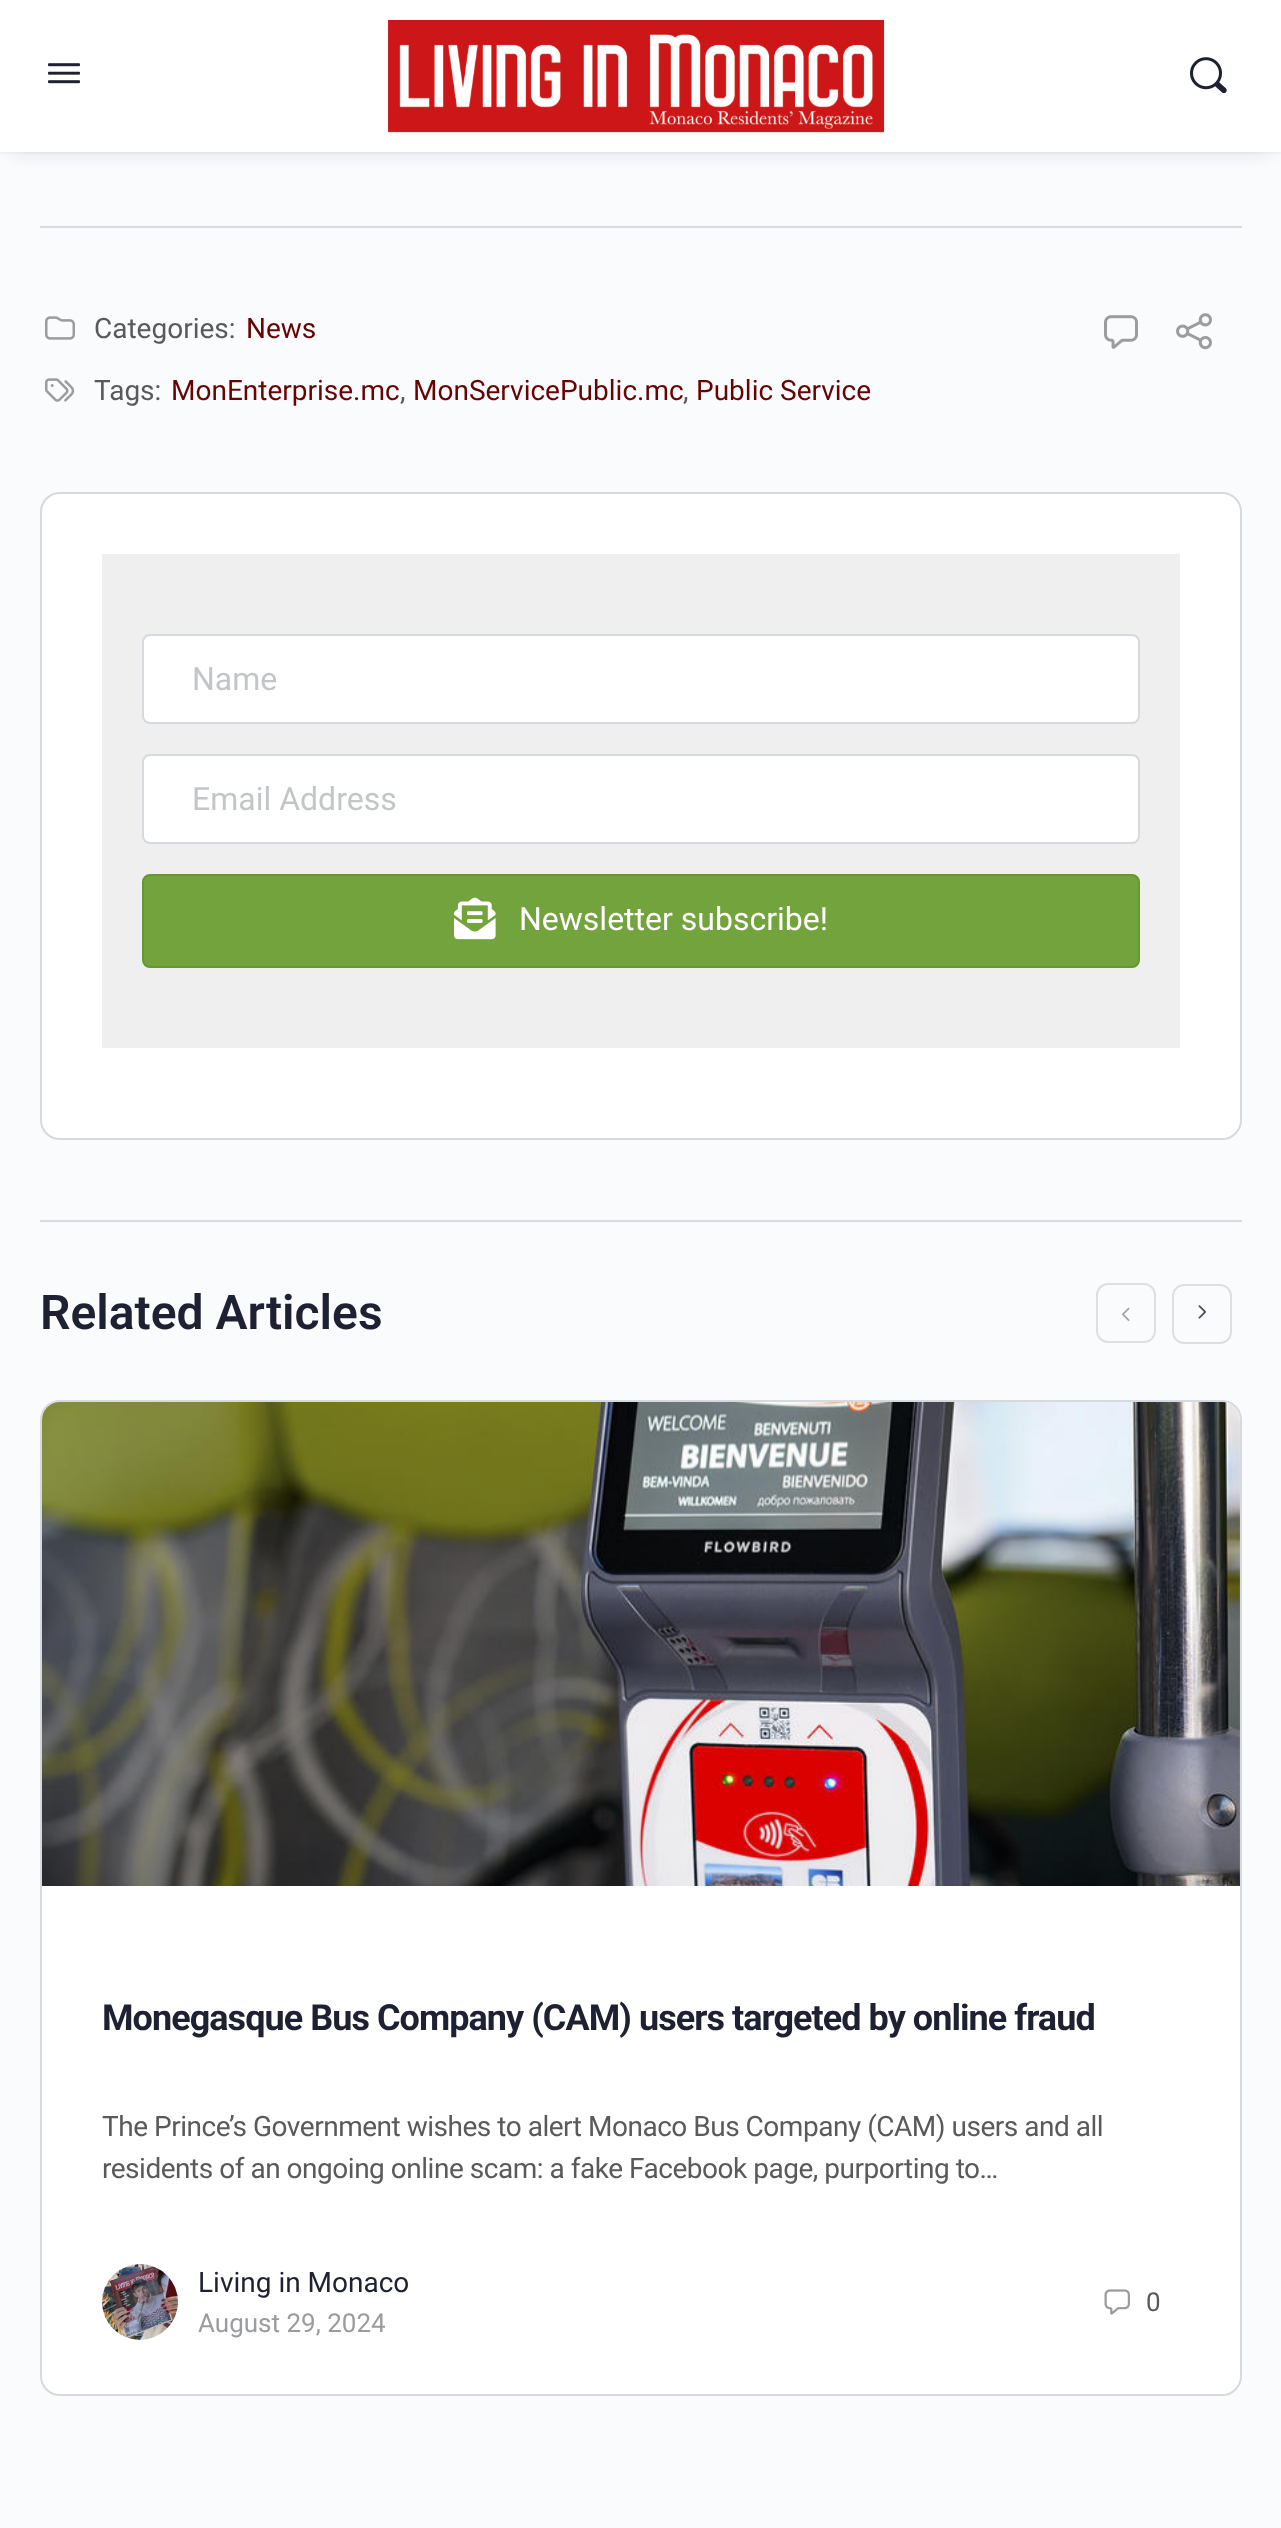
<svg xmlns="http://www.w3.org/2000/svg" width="1281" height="2528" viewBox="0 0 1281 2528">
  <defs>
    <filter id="blur1" x="-50%" y="-200%" width="200%" height="500%"><feGaussianBlur stdDeviation="10"/></filter>
  </defs>
  <rect width="100%" height="100%" fill="#fafbfd"/>
  <rect x="14" y="24" width="1254" height="124" fill="#41476c" fill-opacity="0.25" filter="url(#blur1)"/>
  <rect x="0" y="152" width="1281" height="2" fill="#8b8d9d" fill-opacity="0.05"/>
  <rect x="0" y="0" width="1281" height="152" fill="#ffffff"/>
  <image x="48" y="63" width="32" height="21" href="img1.png"/>
  <image x="388" y="20" width="497" height="113" href="img2.png"/>
  <image x="1190" y="57" width="37" height="37" href="img3.png"/>
  <rect x="40" y="226" width="1202" height="2" fill="#d6d9dd"/>
  <image x="45" y="316" width="30" height="24" href="img4.png"/>
  <text x="94" y="338" font-family="Roboto" font-size="28" fill="#5a5a5a">Categories:</text>
  <text x="246" y="338" font-family="Roboto" font-size="28" fill="#680303">News</text>
  <image x="45" y="378" width="30" height="24" href="img5.png"/>
  <text x="94" y="400" font-family="Roboto" font-size="28" fill="#5a5a5a">Tags:</text>
  <text x="171" y="400" font-family="Roboto" font-size="28" fill="#680303">MonEnterprise.mc</text>
  <text x="400" y="400" font-family="Roboto" font-size="28" fill="#5a5a5a">,</text>
  <text x="413" y="400" font-family="Roboto" font-size="28" fill="#680303">MonServicePublic.mc</text>
  <text x="683" y="400" font-family="Roboto" font-size="28" fill="#5a5a5a">,</text>
  <text x="696" y="400" font-family="Roboto" font-size="28" fill="#680303">Public Service</text>
  <image x="1104" y="315" width="34" height="34" href="img6.png"/>
  <image x="1176" y="313" width="36" height="37" href="img7.png"/>
  <rect x="41" y="493" width="1200" height="646" rx="19" fill="#ffffff" stroke="#d6d9dd" stroke-width="2"/>
  <rect x="102" y="554" width="1078" height="494" fill="#efefef"/>
  <rect x="143" y="635" width="996" height="88" rx="7" fill="#ffffff" stroke="#d6d9dd" stroke-width="2"/>
  <text x="192" y="690" font-family="Roboto" font-size="32" fill="#c3c6c9">Name</text>
  <rect x="143" y="755" width="996" height="88" rx="7" fill="#ffffff" stroke="#d6d9dd" stroke-width="2"/>
  <text x="192" y="810" font-family="Roboto" font-size="32" fill="#c3c6c9">Email Address</text>
  <rect x="143" y="875" width="996" height="92" rx="7" fill="#73a33c" stroke="#679730" stroke-width="2"/>
  <image x="454" y="897" width="42" height="43" href="img8.png"/>
  <text x="519" y="930" font-family="Roboto" font-size="32" fill="#ffffff">Newsletter subscribe!</text>
  <rect x="40" y="1220" width="1202" height="2" fill="#d6d9dd"/>
  <text x="40" y="1329" font-family="Roboto" font-size="48" font-weight="600" fill="#1e2132">Related Articles</text>
  <path d="M1144 1342H1108C1102 1342 1097 1337 1097 1331V1295C1097 1289 1102 1284 1108 1284H1144C1150 1284 1155 1289 1155 1295V1331C1155 1337 1150 1342 1144 1342Z" fill="none" stroke="#dde0e3" stroke-width="2"/>
  <image x="1122" y="1307" width="8" height="14" href="img9.png"/>
  <rect x="1173" y="1285" width="58" height="58" rx="11" fill="none" stroke="#dde0e3" stroke-width="2"/>
  <image x="1198" y="1305" width="8" height="14" href="img10.png"/>
  <rect x="41" y="1401" width="1200" height="994" rx="19" fill="#ffffff" stroke="#d6d9dd" stroke-width="2"/>
  <image x="42" y="1402" width="1198" height="484" href="img11.png"/>
  <text x="102" y="2030" font-family="Roboto" font-size="36" font-weight="bold" letter-spacing="-0.95" fill="#1e2132">Monegasque Bus Company (CAM) users targeted by online fraud</text>
  <text x="102" y="2136" font-family="Roboto" font-size="28" letter-spacing="-0.48" fill="#5a5a5a">The Prince’s Government wishes to alert Monaco Bus Company (CAM) users and all</text>
  <text x="102" y="2178" font-family="Roboto" font-size="28" letter-spacing="-0.48" fill="#5a5a5a">residents of an ongoing online scam: a fake Facebook page, purporting to…</text>
  <image x="102" y="2264" width="76" height="76" href="img12.png"/>
  <text x="198" y="2292" font-family="Roboto" font-size="28" fill="#1e2132">Living in Monaco</text>
  <text x="198" y="2332" font-family="Roboto" font-size="26" fill="#9b9c9f">August 29, 2024</text>
  <image x="1104" y="2289" width="26" height="26" href="img13.png"/>
  <text x="1146" y="2311" font-family="Roboto" font-size="26" fill="#5a5a5a">0</text>
</svg>
